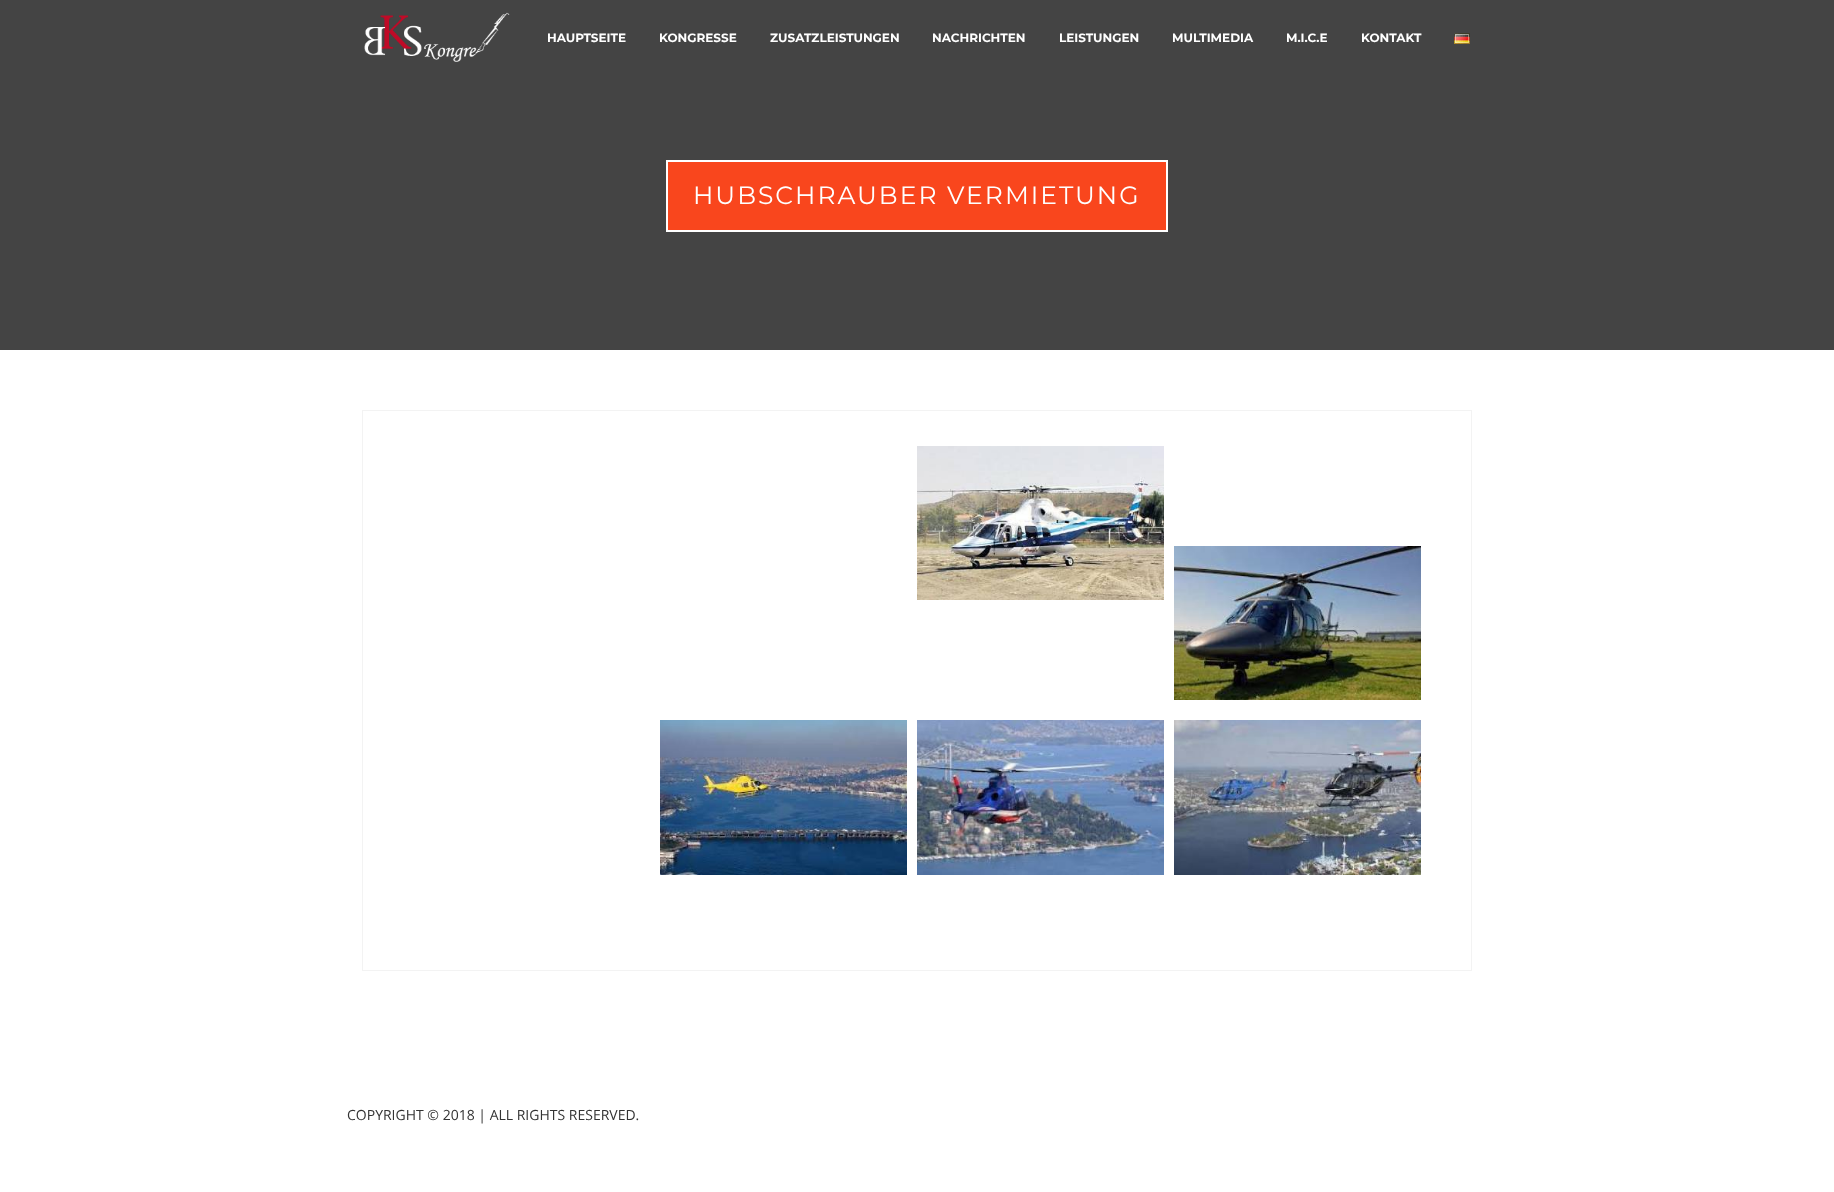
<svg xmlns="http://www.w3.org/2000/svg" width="1834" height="1192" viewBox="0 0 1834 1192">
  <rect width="100%" height="100%" fill="#ffffff"/>
  <rect x="0" y="0" width="1834" height="350" fill="#444444"/>
  <image x="364" y="12" width="146" height="50" href="img1.png"/>
  <text x="547" y="42" font-family="Montserrat" font-size="12" font-weight="bold" fill="#ffffff">HAUPTSEITE</text>
  <text x="659" y="42" font-family="Montserrat" font-size="12" font-weight="bold" fill="#ffffff">KONGRESSE</text>
  <text x="770" y="42" font-family="Montserrat" font-size="12" font-weight="bold" fill="#ffffff">ZUSATZLEISTUNGEN</text>
  <text x="932" y="42" font-family="Montserrat" font-size="12" font-weight="bold" fill="#ffffff">NACHRICHTEN</text>
  <text x="1059" y="42" font-family="Montserrat" font-size="12" font-weight="bold" fill="#ffffff">LEISTUNGEN</text>
  <text x="1172" y="42" font-family="Montserrat" font-size="12" font-weight="bold" fill="#ffffff">MULTIMEDIA</text>
  <text x="1286" y="42" font-family="Montserrat" font-size="12" font-weight="bold" fill="#ffffff">M.I.C.E</text>
  <text x="1361" y="42" font-family="Montserrat" font-size="12" font-weight="bold" fill="#ffffff">KONTAKT</text>
  <image x="1454" y="33" width="16" height="11" href="img2.png"/>
  <rect x="667" y="161" width="500" height="70" fill="#f9461d" stroke="#ffffff" stroke-width="2"/>
  <text x="693" y="204" font-family="Montserrat" font-size="25" letter-spacing="2" fill="#ffffff">HUBSCHRAUBER VERMIETUNG</text>
  <rect x="362.5" y="410.5" width="1109" height="560" fill="none" stroke="#f3f3f3"/>
  <image x="917" y="446" width="247" height="154" href="img3.png"/>
  <image x="1174" y="546" width="247" height="154" href="img4.png"/>
  <image x="660" y="720" width="247" height="155" href="img5.png"/>
  <image x="917" y="720" width="247" height="155" href="img6.png"/>
  <image x="1174" y="720" width="247" height="155" href="img7.png"/>
  <text x="347" y="1120" font-family="Open Sans" font-size="14" fill="#333333">COPYRIGHT © 2018 | ALL RIGHTS RESERVED.</text>
</svg>
